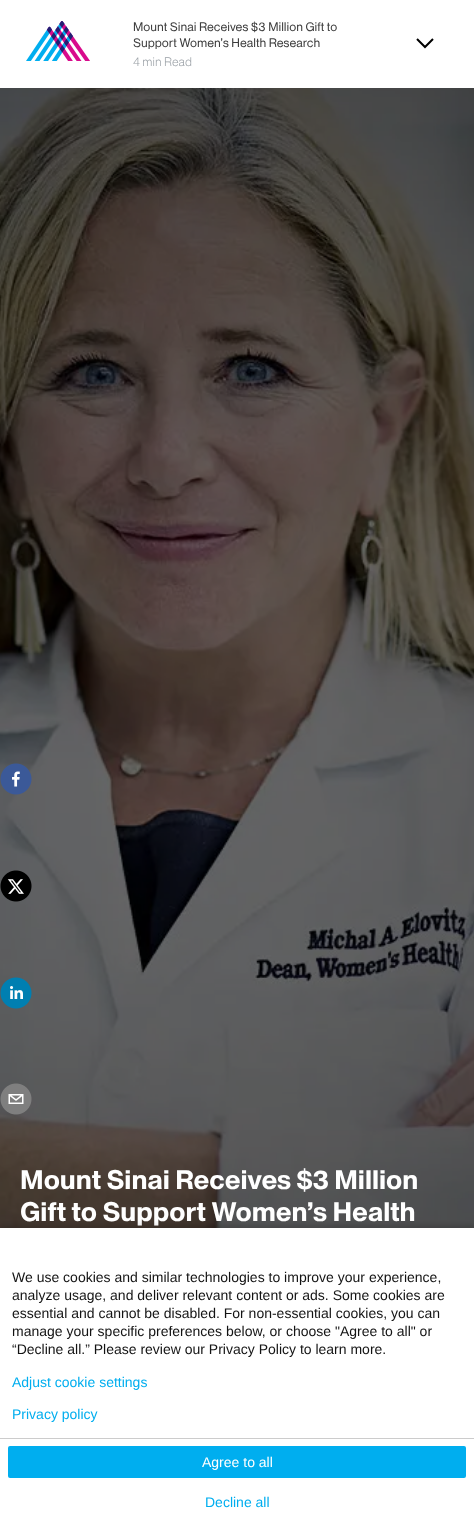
<svg xmlns="http://www.w3.org/2000/svg" width="474" height="1526" viewBox="0 0 474 1526">
  <defs>
    <filter id="blur1" x="-50%" y="-200%" width="200%" height="500%"><feGaussianBlur stdDeviation="2.5"/></filter>
  </defs>
  <rect width="100%" height="100%" fill="#ffffff"/>
  <image x="26" y="21" width="64" height="40" href="img1.png"/>
  <text x="133" y="31" font-family="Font" font-size="12" fill="#3d3d3d">Mount Sinai Receives $3 Million Gift to</text>
  <text x="133" y="47" font-family="Font" font-size="12" fill="#3d3d3d">Support Women’s Health Research</text>
  <text x="133" y="66" font-family="Font" font-size="12" font-weight="300" fill="#9aa0a6">4 min Read</text>
  <path d="M417 39L425 47L433 39" fill="none" stroke="#000000" stroke-width="2"/>
  <image x="0" y="88" width="474" height="1140" href="img6.png"/>
  <image x="0" y="763" width="32" height="32" href="img2.png"/>
  <image x="0" y="870" width="32" height="32" href="img3.png"/>
  <image x="0" y="977" width="32" height="32" href="img4.png"/>
  <image x="0" y="1083" width="32" height="32" href="img5.png"/>
  <text x="20" y="1189" font-family="Font" font-size="26" font-weight="bold" fill="#ffffff">Mount Sinai Receives $3 Million</text>
  <text x="20" y="1221" font-family="Font" font-size="26" font-weight="bold" fill="#ffffff">Gift to Support Women’s Health</text>
  <rect x="-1" y="1225" width="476" height="300" fill="#000000" fill-opacity="0.14" filter="url(#blur1)"/>
  <rect x="0" y="1228" width="474" height="298" fill="#ffffff"/>
  <text x="12" y="1282" font-family="Liberation Sans" font-size="14" fill="#131313">We use cookies and similar technologies to improve your experience,</text>
  <text x="12" y="1300" font-family="Liberation Sans" font-size="14" fill="#131313">analyze usage, and deliver relevant content or ads. Some cookies are</text>
  <text x="12" y="1318" font-family="Liberation Sans" font-size="14" fill="#131313">essential and cannot be disabled. For non-essential cookies, you can</text>
  <text x="12" y="1336" font-family="Liberation Sans" font-size="14" fill="#131313">manage your specific preferences below, or choose "Agree to all" or</text>
  <text x="12" y="1354" font-family="Liberation Sans" font-size="14" fill="#131313">“Decline all.” Please review our Privacy Policy to learn more.</text>
  <rect x="0" y="1438" width="474" height="1" fill="#cccccc"/>
  <rect x="8" y="1446" width="458" height="32" rx="2" fill="#00aeef"/>
  <text x="202" y="1467" font-family="Liberation Sans" font-size="14" fill="#ffffff">Agree to all</text>
  <text x="205" y="1507" font-family="Liberation Sans" font-size="14" fill="#00aeef">Decline all</text>
  <text x="12" y="1387" font-family="Liberation Sans" font-size="14" fill="#00aeef">Adjust cookie settings</text>
  <text x="12" y="1419" font-family="Liberation Sans" font-size="14" fill="#00aeef">Privacy policy</text>
</svg>
